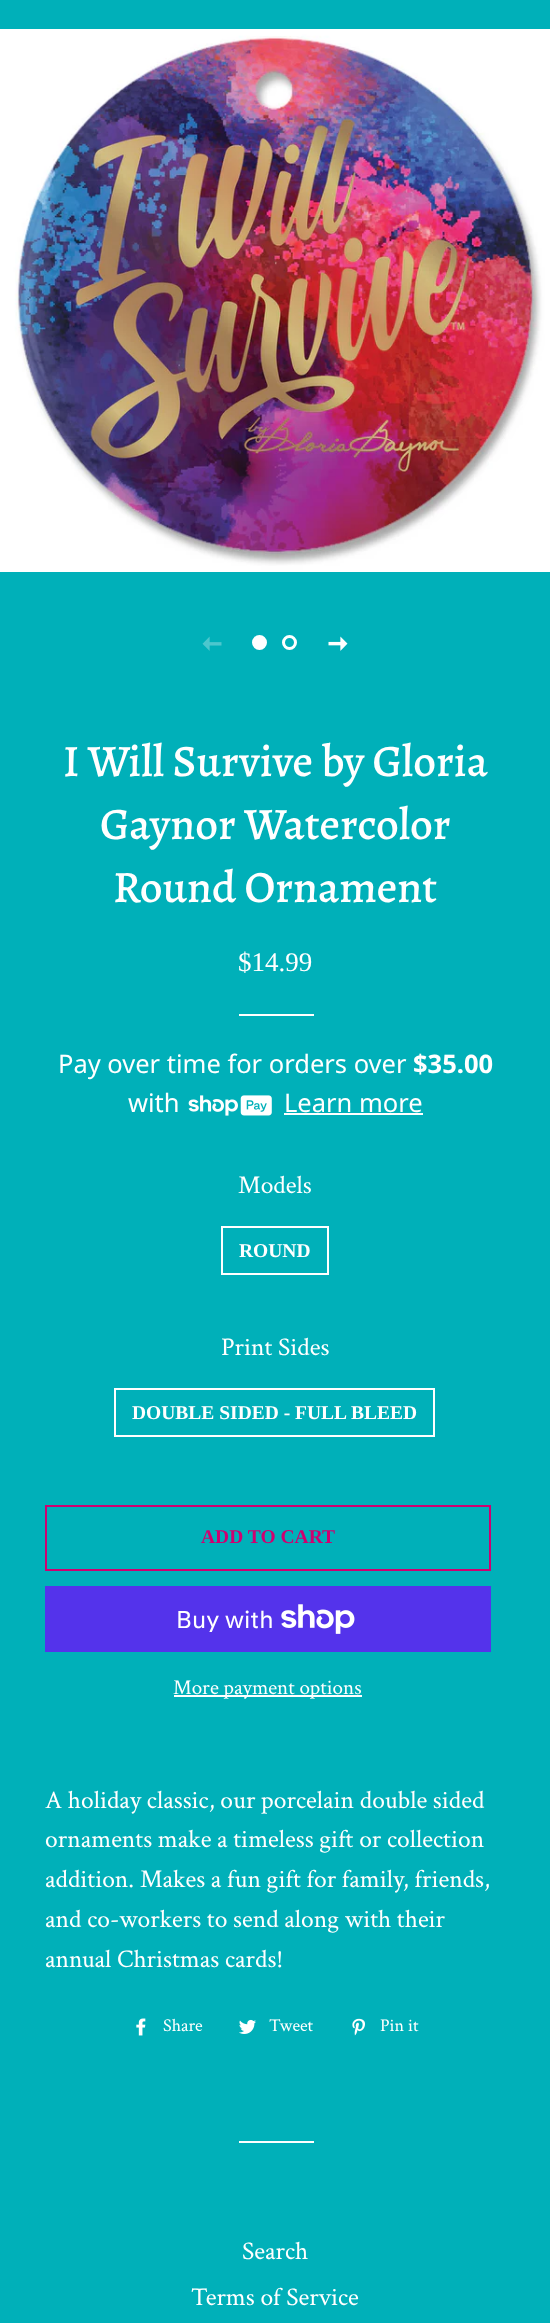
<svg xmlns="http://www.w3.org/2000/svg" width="550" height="2323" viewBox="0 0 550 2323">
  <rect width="100%" height="100%" fill="#00b0b9"/>
  <image x="0" y="29" width="550" height="543" href="img1.png"/>
  <image x="202" y="636" width="20" height="15" href="img2.png"/>
  <circle cx="259.5" cy="642.5" r="6" fill="#ffffff" stroke="#ffffff" stroke-width="3"/>
  <circle cx="289.5" cy="642.5" r="6" fill="none" stroke="#ffffff" stroke-width="3"/>
  <image x="328" y="636" width="20" height="15" href="img3.png"/>
  <text x="63" y="776" font-family="Alegreya" font-size="45" font-weight="500" fill="#ffffff">I Will Survive by Gloria</text>
  <text x="100" y="839" font-family="Alegreya" font-size="45" font-weight="500" fill="#ffffff">Gaynor Watercolor</text>
  <text x="113" y="902" font-family="Alegreya" font-size="45" font-weight="500" fill="#ffffff">Round Ornament</text>
  <text x="238" y="971" font-family="Liberation Serif" font-size="27" fill="#ffffff">$14.99</text>
  <rect x="239" y="1014" width="75" height="2" fill="#ffffff"/>
  <text x="58" y="1073" font-family="Noto Sans" font-size="25.5" fill="#ffffff">Pay over time for orders over</text>
  <text x="413" y="1073" font-family="Noto Sans" font-size="25.5" font-weight="bold" fill="#ffffff">$35.00</text>
  <text x="128" y="1112" font-family="Noto Sans" font-size="25.5" fill="#ffffff">with</text>
  <image x="188" y="1095" width="84" height="21" href="img4.png"/>
  <text x="284" y="1112" font-family="Noto Sans" font-size="25.5" fill="#ffffff">Learn more</text>
  <rect x="284" y="1113" width="139" height="2" fill="#ffffff"/>
  <text x="238" y="1193" font-family="Crimson Text" font-size="25.5" fill="#ffffff">Models</text>
  <rect x="222" y="1227" width="106" height="47" fill="none" stroke="#ffffff" stroke-width="2"/>
  <text x="239" y="1257" font-family="Liberation Serif" font-size="19.5" font-weight="bold" fill="#ffffff">ROUND</text>
  <text x="221" y="1355" font-family="Crimson Text" font-size="25.5" fill="#ffffff">Print Sides</text>
  <rect x="115" y="1389" width="319" height="47" fill="none" stroke="#ffffff" stroke-width="2"/>
  <text x="132" y="1419" font-family="Liberation Serif" font-size="19.5" font-weight="bold" fill="#ffffff">DOUBLE SIDED - FULL BLEED</text>
  <rect x="46" y="1506" width="444" height="64" fill="none" stroke="#d00070" stroke-width="2"/>
  <text x="201" y="1543" font-family="Liberation Serif" font-size="19.5" font-weight="bold" fill="#d00070">ADD TO CART</text>
  <rect x="45" y="1586" width="446" height="66" fill="#5433eb"/>
  <text x="176" y="1628" font-family="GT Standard" font-size="24" fill="#ffffff">Buy with</text>
  <image x="281" y="1604" width="74" height="30" href="img5.png"/>
  <rect x="174" y="1695" width="188" height="2" fill="#ffffff"/>
  <text x="173" y="1694" font-family="Crimson Text" font-size="21" fill="#ffffff">More payment options</text>
  <text x="45" y="1808" font-family="Crimson Text" font-size="25.5" fill="#ffffff">A holiday classic, our porcelain double sided</text>
  <text x="45" y="1847" font-family="Crimson Text" font-size="25.5" fill="#ffffff">ornaments make a timeless gift or collection</text>
  <text x="45" y="1887" font-family="Crimson Text" font-size="25.5" fill="#ffffff">addition. Makes a fun gift for family, friends,</text>
  <text x="45" y="1927" font-family="Crimson Text" font-size="25.5" fill="#ffffff">and co-workers to send along with their</text>
  <text x="45" y="1967" font-family="Crimson Text" font-size="25.5" fill="#ffffff">annual Christmas cards!</text>
  <image x="136" y="2018" width="10" height="18" href="img6.png"/>
  <text x="163" y="2031" font-family="Crimson Text" font-size="18" fill="#ffffff">Share</text>
  <image x="239" y="2019" width="17" height="15" href="img7.png"/>
  <text x="269" y="2031" font-family="Crimson Text" font-size="18" fill="#ffffff">Tweet</text>
  <image x="352" y="2018" width="13" height="18" href="img8.png"/>
  <text x="380" y="2031" font-family="Crimson Text" font-size="18" fill="#ffffff">Pin it</text>
  <rect x="239" y="2141" width="75" height="2" fill="#ffffff"/>
  <text x="242" y="2259" font-family="Crimson Text" font-size="25.5" fill="#ffffff">Search</text>
  <text x="191" y="2305" font-family="Crimson Text" font-size="25.5" fill="#ffffff">Terms of Service</text>
</svg>
